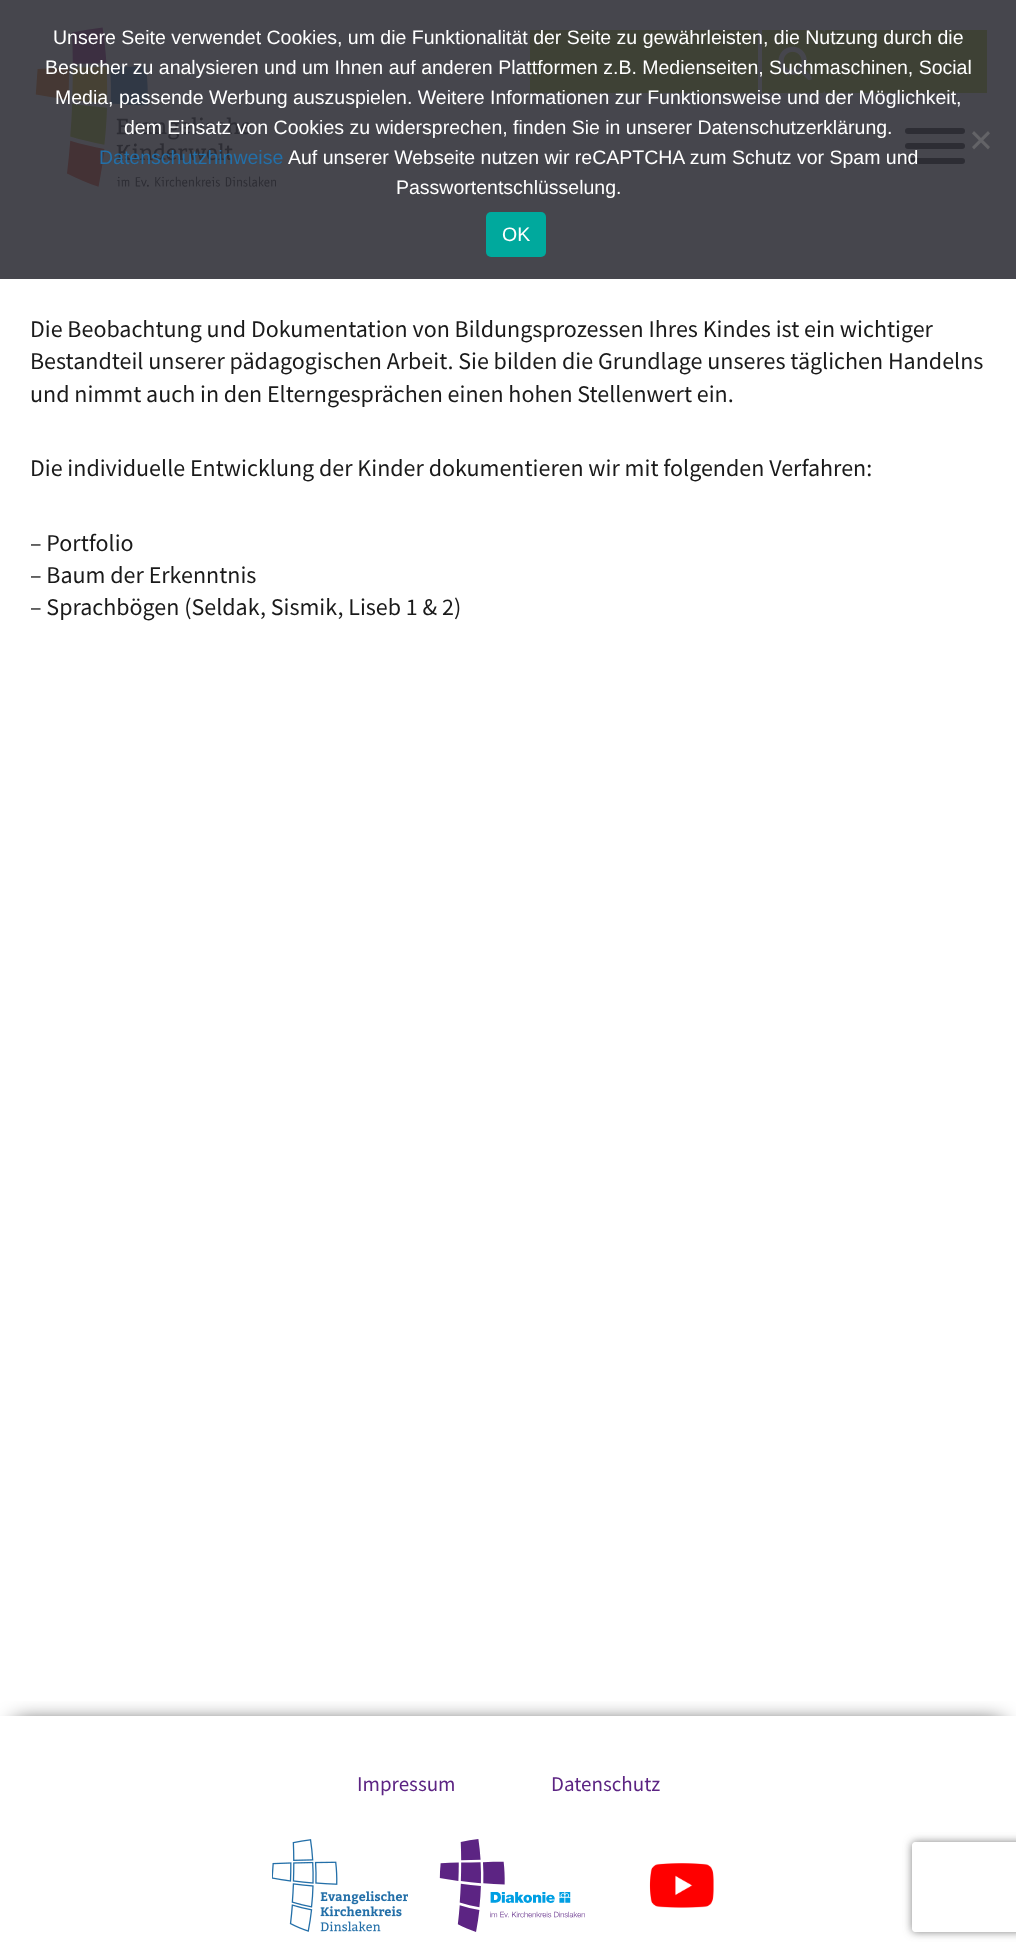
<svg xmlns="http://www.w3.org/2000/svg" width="1016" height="1952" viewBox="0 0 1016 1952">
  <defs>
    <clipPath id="clip1"><rect x="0" y="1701" width="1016" height="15"/></clipPath>
    <filter id="blur1" x="-50%" y="-200%" width="200%" height="500%"><feGaussianBlur stdDeviation="11"/></filter>
    <clipPath id="clip2"><path d="M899 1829H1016V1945H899ZM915 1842H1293C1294.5 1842 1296 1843.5 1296 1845V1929C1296 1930.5 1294.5 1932 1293 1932H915C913.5 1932 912 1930.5 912 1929V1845C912 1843.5 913.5 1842 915 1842Z" clip-rule="evenodd"/></clipPath>
    <filter id="blur2" x="-50%" y="-200%" width="200%" height="500%"><feGaussianBlur stdDeviation="4"/></filter>
  </defs>
  <rect width="100%" height="100%" fill="#ffffff"/>
  <image x="35" y="27" width="242" height="160" href="img1.png"/>
  <rect x="530" y="30" width="228" height="63" fill="#afca0a"/>
  <path d="M762 30H822C823.5 30 825 31.5 825 33V90C825 91.5 823.5 93 822 93H762Z" fill="#afca0b"/>
  <image x="778" y="46" width="34" height="35" href="img2.png"/>
  <rect x="825" y="30" width="162" height="63" fill="#afca0b"/>
  <rect x="905" y="158" width="60" height="6" rx="3" fill="#000000"/>
  <rect x="905" y="128" width="60" height="6" rx="3" fill="#000000"/>
  <rect x="905" y="143" width="60" height="6" rx="3" fill="#000000"/>
  <rect x="0" y="0" width="1016" height="279" fill="#32323a" fill-opacity="0.9"/>
  <text x="53" y="44" font-family="Liberation Sans" font-size="19.5" fill="#ffffff">Unsere Seite verwendet Cookies, um die Funktionalität der Seite zu gewährleisten, die Nutzung durch die</text>
  <text x="45" y="74" font-family="Liberation Sans" font-size="19.5" fill="#ffffff">Besucher zu analysieren und um Ihnen auf anderen Plattformen z.B. Medienseiten, Suchmaschinen, Social</text>
  <text x="55" y="104" font-family="Liberation Sans" font-size="19.5" fill="#ffffff">Media, passende Werbung auszuspielen. Weitere Informationen zur Funktionsweise und der Möglichkeit,</text>
  <text x="124" y="134" font-family="Liberation Sans" font-size="19.5" fill="#ffffff">dem Einsatz von Cookies zu widersprechen, finden Sie in unserer Datenschutzerklärung.</text>
  <text x="99" y="164" font-family="Liberation Sans" font-size="19.5" fill="#236fa8">Datenschutzhinweise</text>
  <text x="288" y="164" font-family="Liberation Sans" font-size="19.5" fill="#ffffff">Auf unserer Webseite nutzen wir reCAPTCHA zum Schutz vor Spam und</text>
  <text x="396" y="194" font-family="Liberation Sans" font-size="19.5" fill="#ffffff">Passwortentschlüsselung.</text>
  <path d="M988 131L990 133.5L974 149.5L972 147Z" fill="#636367"/>
  <path d="M972 133.5L974 131L990 147L988 149.5Z" fill="#636367"/>
  <rect x="486" y="212" width="60" height="45" rx="5" fill="#00a99d"/>
  <text x="502" y="241" font-family="Liberation Sans" font-size="19.5" fill="#ffffff">OK</text>
  <text x="30" y="337" font-family="Source Sans Pro" font-size="24" fill="#1a1a1a">Die Beobachtung und Dokumentation von Bildungsprozessen Ihres Kindes ist ein wichtiger</text>
  <text x="30" y="369" font-family="Source Sans Pro" font-size="24" fill="#1a1a1a">Bestandteil unserer pädagogischen Arbeit. Sie bilden die Grundlage unseres täglichen Handelns</text>
  <text x="30" y="402" font-family="Source Sans Pro" font-size="24" fill="#1a1a1a">und nimmt auch in den Elterngesprächen einen hohen Stellenwert ein.</text>
  <text x="30" y="476" font-family="Source Sans Pro" font-size="24" fill="#1a1a1a">Die individuelle Entwicklung der Kinder dokumentieren wir mit folgenden Verfahren:</text>
  <text x="30" y="551" font-family="Source Sans Pro" font-size="24" fill="#1a1a1a">– Portfolio</text>
  <text x="30" y="583" font-family="Source Sans Pro" font-size="24" fill="#1a1a1a">– Baum der Erkenntnis</text>
  <text x="30" y="615" font-family="Source Sans Pro" font-size="24" fill="#1a1a1a">– Sprachbögen (Seldak, Sismik, Liseb 1 &amp; 2)</text>
  <g clip-path="url(#clip1)">
    <rect x="15" y="1724" width="987" height="207" fill="#000000" filter="url(#blur1)"/>
  </g>
  <text x="357" y="1791" font-family="Source Sans Pro" font-size="21" fill="#5c2483">Impressum</text>
  <text x="551" y="1791" font-family="Source Sans Pro" font-size="21" fill="#5c2483">Datenschutz</text>
  <image x="272" y="1839" width="136" height="93" href="img3.png"/>
  <image x="439" y="1839" width="146" height="93" href="img4.png"/>
  <image x="649" y="1863" width="65" height="45" href="img5.png"/>
  <g clip-path="url(#clip2)">
    <rect x="912" y="1842" width="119" height="90" rx="3" fill="#808080" filter="url(#blur2)"/>
  </g>
</svg>
